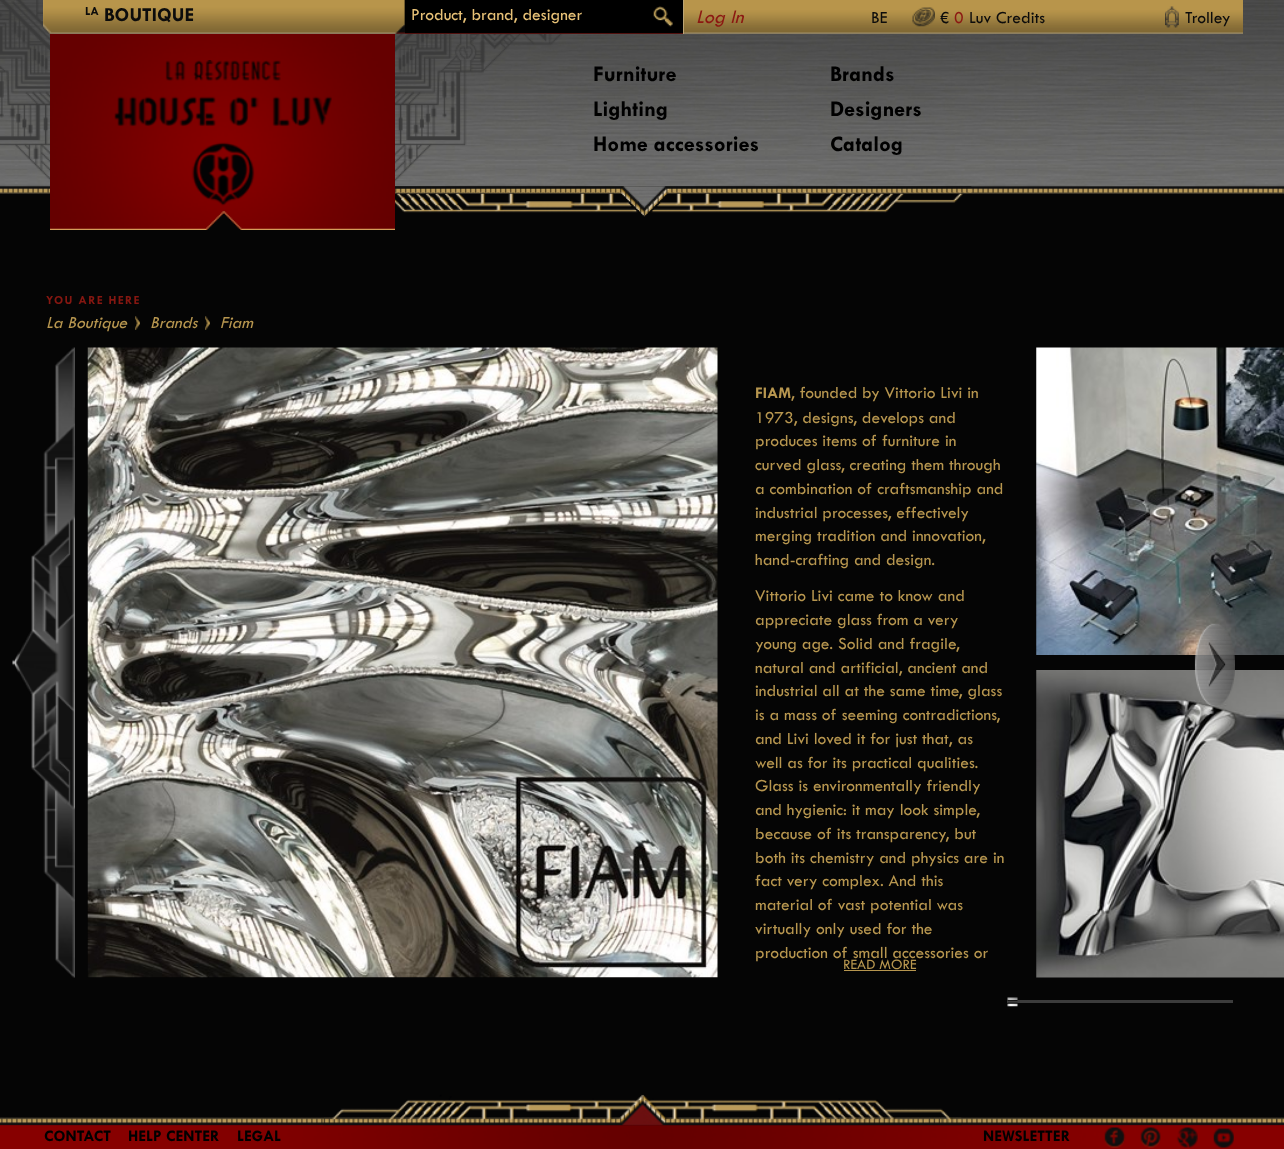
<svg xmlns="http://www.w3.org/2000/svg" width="1284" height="1149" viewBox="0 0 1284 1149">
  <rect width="100%" height="100%" fill="#050505"/>
  <image x="0" y="0" width="1284" height="194" href="img1.png"/>
  <image x="0" y="0" width="972" height="217" href="img2.png"/>
  <image x="50" y="33" width="345" height="197" href="img8.png"/>
  <image x="43" y="0" width="362" height="34" href="img3.png"/>
  <text x="85" y="15" font-family="'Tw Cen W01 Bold'" font-size="12.5" font-weight="bold" fill="#0c0c0c">LA</text>
  <text x="104" y="21" font-family="'Tw Cen W01 Bold'" font-size="20" font-weight="bold" fill="#0c0c0c">BOUTIQUE</text>
  <rect x="405" y="0" width="278" height="33" fill="#000000"/>
  <rect x="405" y="33" width="278" height="1" fill="#51100e"/>
  <text x="411" y="20" font-family="'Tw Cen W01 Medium'" font-size="17.5" font-weight="500" fill="#e7c177">Product, brand, designer</text>
  <image x="653" y="6" width="20" height="21" href="img4.png"/>
  <image x="684" y="0" width="559" height="34" href="img5.png"/>
  <rect x="683" y="0" width="1" height="34" fill="#bca574"/>
  <text x="696" y="23" font-family="'Tw Cen W01 Medium'" font-size="20" font-weight="500" font-style="italic" fill="#8c1812">Log In</text>
  <text x="871" y="23" font-family="'Tw Cen W01 Medium'" font-size="17.5" font-weight="500" fill="#0c0c0c">BE</text>
  <image x="912" y="7" width="23" height="20" href="img6.png"/>
  <text x="940" y="23" font-family="'Tw Cen W01 Medium'" font-size="17.5" font-weight="500" fill="#0c0c0c">€</text>
  <text x="954" y="23" font-family="'Tw Cen W01 Medium'" font-size="17.5" font-weight="500" fill="#8c1812">0</text>
  <text x="969" y="23" font-family="'Tw Cen W01 Medium'" font-size="17.5" font-weight="500" fill="#0c0c0c">Luv Credits</text>
  <image x="1165" y="6" width="14" height="22" href="img7.png"/>
  <text x="1185" y="23" font-family="'Tw Cen W01 Medium'" font-size="17.5" font-weight="500" fill="#0c0c0c">Trolley</text>
  <image x="114" y="60" width="218" height="146" href="img9.png"/>
  <text x="593" y="81" font-family="'Tw Cen W01 Bold'" font-size="22.5" font-weight="bold" fill="#000000">Furniture</text>
  <text x="593" y="116" font-family="'Tw Cen W01 Bold'" font-size="22.5" font-weight="bold" fill="#000000">Lighting</text>
  <text x="593" y="151" font-family="'Tw Cen W01 Bold'" font-size="22.5" font-weight="bold" fill="#000000">Home accessories</text>
  <text x="830" y="81" font-family="'Tw Cen W01 Bold'" font-size="22.5" font-weight="bold" fill="#000000">Brands</text>
  <text x="830" y="116" font-family="'Tw Cen W01 Bold'" font-size="22.5" font-weight="bold" fill="#000000">Designers</text>
  <text x="830" y="151" font-family="'Tw Cen W01 Bold'" font-size="22.5" font-weight="bold" fill="#000000">Catalog</text>
  <text x="46" y="304" font-family="'Tw Cen W01 Bold'" font-size="12.5" font-weight="bold" letter-spacing="1.25" fill="#851711">YOU ARE HERE</text>
  <text x="46" y="328" font-family="'Tw Cen W01 Medium'" font-size="17.5" font-weight="500" font-style="italic" fill="#b7964f">La Boutique</text>
  <image x="135" y="316" width="5" height="14" href="img10.png"/>
  <text x="150" y="328" font-family="'Tw Cen W01 Medium'" font-size="17.5" font-weight="500" font-style="italic" fill="#b7964f">Brands</text>
  <image x="205" y="316" width="5" height="14" href="img10.png"/>
  <text x="220" y="328" font-family="'Tw Cen W01 Medium'" font-size="17.5" font-weight="500" font-style="italic" fill="#b7964f">Fiam</text>
  <image x="12" y="347" width="63" height="631" href="img11.png"/>
  <image x="87" y="347" width="631" height="631" href="img12.png"/>
  <text x="755" y="398" font-family="'Tw Cen W01 Bold'" font-size="16.25" font-weight="bold" fill="#b7964f">FIAM</text>
  <text x="791" y="398" font-family="'Tw Cen W01 Medium'" font-size="17.5" font-weight="500" fill="#b7964f">, founded by Vittorio Livi in</text>
  <text x="755" y="423" font-family="'Tw Cen W01 Medium'" font-size="17.5" font-weight="500" fill="#b7964f">1973, designs, develops and</text>
  <text x="755" y="446" font-family="'Tw Cen W01 Medium'" font-size="17.5" font-weight="500" fill="#b7964f">produces items of furniture in</text>
  <text x="755" y="470" font-family="'Tw Cen W01 Medium'" font-size="17.5" font-weight="500" fill="#b7964f">curved glass, creating them through</text>
  <text x="755" y="494" font-family="'Tw Cen W01 Medium'" font-size="17.5" font-weight="500" fill="#b7964f">a combination of craftsmanship and</text>
  <text x="755" y="518" font-family="'Tw Cen W01 Medium'" font-size="17.5" font-weight="500" fill="#b7964f">industrial processes, effectively</text>
  <text x="755" y="541" font-family="'Tw Cen W01 Medium'" font-size="17.5" font-weight="500" fill="#b7964f">merging tradition and innovation,</text>
  <text x="755" y="565" font-family="'Tw Cen W01 Medium'" font-size="17.5" font-weight="500" fill="#b7964f">hand-crafting and design.</text>
  <text x="755" y="601" font-family="'Tw Cen W01 Medium'" font-size="17.5" font-weight="500" fill="#b7964f">Vittorio Livi came to know and</text>
  <text x="755" y="625" font-family="'Tw Cen W01 Medium'" font-size="17.5" font-weight="500" fill="#b7964f">appreciate glass from a very</text>
  <text x="755" y="649" font-family="'Tw Cen W01 Medium'" font-size="17.5" font-weight="500" fill="#b7964f">young age. Solid and fragile,</text>
  <text x="755" y="673" font-family="'Tw Cen W01 Medium'" font-size="17.5" font-weight="500" fill="#b7964f">natural and artificial, ancient and</text>
  <text x="755" y="696" font-family="'Tw Cen W01 Medium'" font-size="17.5" font-weight="500" fill="#b7964f">industrial all at the same time, glass</text>
  <text x="755" y="720" font-family="'Tw Cen W01 Medium'" font-size="17.5" font-weight="500" fill="#b7964f">is a mass of seeming contradictions,</text>
  <text x="755" y="744" font-family="'Tw Cen W01 Medium'" font-size="17.5" font-weight="500" fill="#b7964f">and Livi loved it for just that, as</text>
  <text x="755" y="768" font-family="'Tw Cen W01 Medium'" font-size="17.5" font-weight="500" fill="#b7964f">well as for its practical qualities.</text>
  <text x="755" y="791" font-family="'Tw Cen W01 Medium'" font-size="17.5" font-weight="500" fill="#b7964f">Glass is environmentally friendly</text>
  <text x="755" y="815" font-family="'Tw Cen W01 Medium'" font-size="17.5" font-weight="500" fill="#b7964f">and hygienic: it may look simple,</text>
  <text x="755" y="839" font-family="'Tw Cen W01 Medium'" font-size="17.5" font-weight="500" fill="#b7964f">because of its transparency, but</text>
  <text x="755" y="863" font-family="'Tw Cen W01 Medium'" font-size="17.5" font-weight="500" fill="#b7964f">both its chemistry and physics are in</text>
  <text x="755" y="886" font-family="'Tw Cen W01 Medium'" font-size="17.5" font-weight="500" fill="#b7964f">fact very complex. And this</text>
  <text x="755" y="910" font-family="'Tw Cen W01 Medium'" font-size="17.5" font-weight="500" fill="#b7964f">material of vast potential was</text>
  <text x="755" y="934" font-family="'Tw Cen W01 Medium'" font-size="17.5" font-weight="500" fill="#b7964f">virtually only used for the</text>
  <text x="755" y="958" font-family="'Tw Cen W01 Medium'" font-size="17.5" font-weight="500" fill="#b7964f">production of small accessories or</text>
  <text x="843" y="969" font-family="'Tw Cen W01 Medium'" font-size="15" font-weight="500" fill="#b7964f">READ MORE</text>
  <rect x="844" y="970" width="72" height="1" fill="#b7964f"/>
  <image x="1036" y="347" width="248" height="308" href="img13.png"/>
  <image x="1036" y="670" width="248" height="308" href="img14.png"/>
  <image x="1194" y="623" width="41" height="84" href="img15.png"/>
  <rect x="1007" y="1000" width="226" height="3" fill="#3c3c3c"/>
  <image x="1007" y="997" width="11" height="10" href="img16.png"/>
  <image x="0" y="1117" width="1284" height="32" href="img17.png"/>
  <image x="323" y="1094" width="639" height="32" href="img18.png"/>
  <text x="44" y="1141" font-family="'Tw Cen W01 Bold'" font-size="16.25" font-weight="bold" fill="#000000">CONTACT</text>
  <text x="128" y="1141" font-family="'Tw Cen W01 Bold'" font-size="16.25" font-weight="bold" fill="#000000">HELP CENTER</text>
  <text x="237" y="1141" font-family="'Tw Cen W01 Bold'" font-size="16.25" font-weight="bold" fill="#000000">LEGAL</text>
  <text x="983" y="1141" font-family="'Tw Cen W01 Bold'" font-size="16.25" font-weight="bold" fill="#000000">NEWSLETTER</text>
  <image x="1104" y="1127" width="22" height="21" href="img19.png"/>
  <image x="1140" y="1127" width="21" height="21" href="img20.png"/>
  <image x="1176" y="1127" width="22" height="21" href="img21.png"/>
  <image x="1213" y="1128" width="21" height="20" href="img22.png"/>
</svg>
